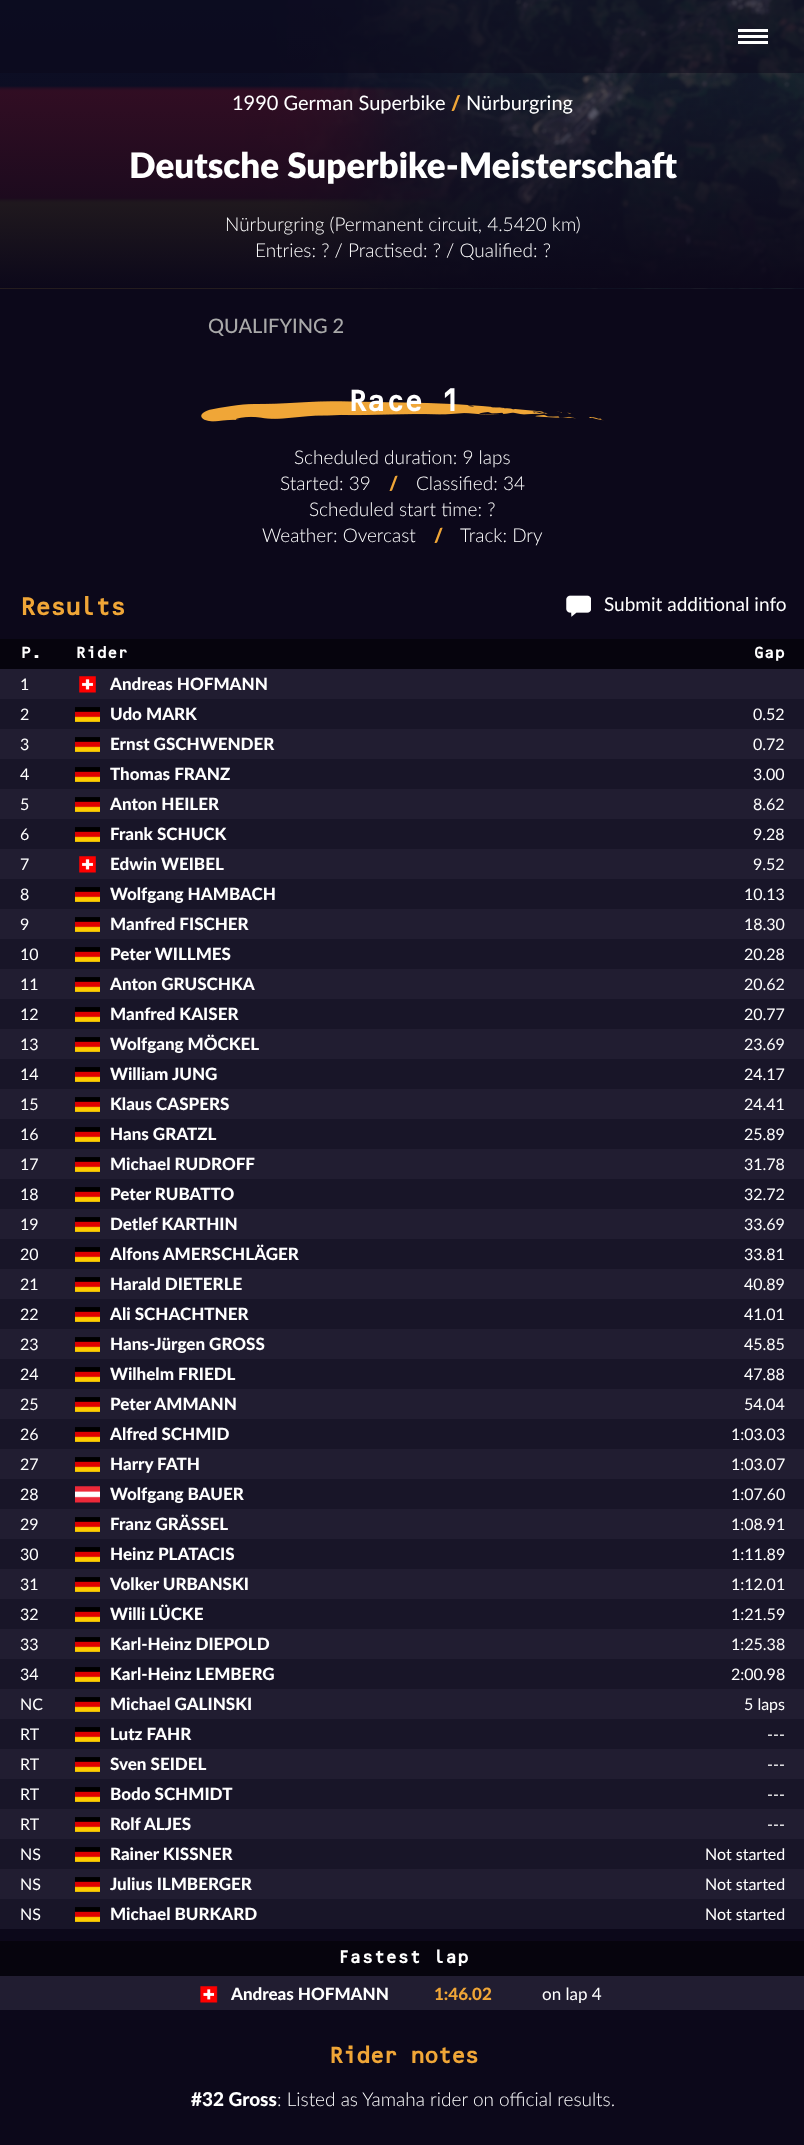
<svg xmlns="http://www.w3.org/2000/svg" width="804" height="2145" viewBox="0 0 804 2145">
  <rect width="100%" height="100%" fill="#0c081a"/>
  <image x="0" y="0" width="804" height="289" href="img1.png"/>
  <rect x="0" y="0" width="804" height="73" fill="#0c081a" fill-opacity="0.5"/>
  <rect x="738" y="35" width="30" height="3" fill="#ffffff"/>
  <rect x="738" y="29" width="30" height="3" fill="#ffffff"/>
  <rect x="738" y="41" width="30" height="3" fill="#ffffff"/>
  <text x="232" y="110" font-family="Lato" font-size="20" fill="#ffffff">1990 German Superbike</text>
  <text x="451" y="110" font-family="Lato" font-size="20" font-weight="900" fill="#f0a637">/</text>
  <text x="466" y="110" font-family="Lato" font-size="20" fill="#ffffff">Nürburgring</text>
  <text x="129" y="178" font-family="Lato" font-size="35" font-weight="900" fill="#ffffff">Deutsche Superbike-Meisterschaft</text>
  <text x="225" y="231" font-family="Lato" font-size="19" font-weight="300" fill="#ffffff">Nürburgring (Permanent circuit, 4.5420 km)</text>
  <text x="255" y="257" font-family="Lato" font-size="19" font-weight="300" fill="#ffffff">Entries: ? / Practised: ? / Qualified: ?</text>
  <text x="208" y="333" font-family="Lato" font-size="20" font-weight="500" fill="#a9a9a9">QUALIFYING 2</text>
  <image x="201" y="401" width="403" height="21" href="img2.png"/>
  <text x="347" y="411" font-family="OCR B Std" font-size="30" font-weight="bold" letter-spacing="-3" fill="#ffffff">Race 1</text>
  <text x="294" y="464" font-family="Lato" font-size="19" font-weight="300" fill="#ffffff">Scheduled duration: 9 laps</text>
  <text x="280" y="490" font-family="Lato" font-size="19" font-weight="300" fill="#ffffff">Started: 39</text>
  <text x="389" y="490" font-family="Lato" font-size="19" font-weight="900" fill="#f0a637">/</text>
  <text x="416" y="490" font-family="Lato" font-size="19" font-weight="300" fill="#ffffff">Classified: 34</text>
  <text x="309" y="516" font-family="Lato" font-size="19" font-weight="300" fill="#ffffff">Scheduled start time: ?</text>
  <text x="262" y="542" font-family="Lato" font-size="19" font-weight="300" fill="#ffffff">Weather: Overcast</text>
  <text x="434" y="542" font-family="Lato" font-size="19" font-weight="900" fill="#f0a637">/</text>
  <text x="460" y="542" font-family="Lato" font-size="19" font-weight="300" fill="#ffffff">Track: Dry</text>
  <text x="19" y="615" font-family="OCR B Std" font-size="25" font-weight="bold" letter-spacing="-3" fill="#f0a637">Results</text>
  <image x="566" y="595" width="25" height="22" href="img3.png"/>
  <text x="604" y="611" font-family="Lato" font-size="19" fill="#ffffff">Submit additional info</text>
  <rect x="0" y="639" width="804" height="30" fill="#06040d"/>
  <text x="20" y="658" font-family="OCR B Std" font-size="16" font-weight="bold" letter-spacing="-1" fill="#ffffff">P.</text>
  <text x="75" y="658" font-family="OCR B Std" font-size="16" font-weight="bold" letter-spacing="-1" fill="#ffffff">Rider</text>
  <text x="753" y="658" font-family="OCR B Std" font-size="16" font-weight="bold" letter-spacing="-1" fill="#ffffff">Gap</text>
  <rect x="0" y="669" width="804" height="30" fill="#211d31"/>
  <text x="20" y="690" font-family="Lato" font-size="16" fill="#ffffff">1</text>
  <image x="79" y="676" width="17" height="17" href="img4.png"/>
  <text x="110" y="690" font-family="'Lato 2'" font-size="17" font-weight="900" fill="#ffffff">Andreas HOFMANN</text>
  <rect x="0" y="699" width="804" height="30" fill="#181528"/>
  <text x="20" y="720" font-family="Lato" font-size="16" fill="#ffffff">2</text>
  <image x="75" y="707" width="25" height="15" href="img5.png"/>
  <text x="110" y="720" font-family="'Lato 2'" font-size="17" font-weight="900" fill="#ffffff">Udo MARK</text>
  <text x="753" y="720" font-family="Lato" font-size="16" fill="#ffffff">0.52</text>
  <rect x="0" y="729" width="804" height="30" fill="#211d31"/>
  <text x="20" y="750" font-family="Lato" font-size="16" fill="#ffffff">3</text>
  <image x="75" y="737" width="25" height="15" href="img6.png"/>
  <text x="110" y="750" font-family="'Lato 2'" font-size="17" font-weight="900" fill="#ffffff">Ernst GSCHWENDER</text>
  <text x="753" y="750" font-family="Lato" font-size="16" fill="#ffffff">0.72</text>
  <rect x="0" y="759" width="804" height="30" fill="#181528"/>
  <text x="20" y="780" font-family="Lato" font-size="16" fill="#ffffff">4</text>
  <image x="75" y="767" width="25" height="15" href="img5.png"/>
  <text x="110" y="780" font-family="'Lato 2'" font-size="17" font-weight="900" fill="#ffffff">Thomas FRANZ</text>
  <text x="753" y="780" font-family="Lato" font-size="16" fill="#ffffff">3.00</text>
  <rect x="0" y="789" width="804" height="30" fill="#211d31"/>
  <text x="20" y="810" font-family="Lato" font-size="16" fill="#ffffff">5</text>
  <image x="75" y="797" width="25" height="15" href="img6.png"/>
  <text x="110" y="810" font-family="'Lato 2'" font-size="17" font-weight="900" fill="#ffffff">Anton HEILER</text>
  <text x="753" y="810" font-family="Lato" font-size="16" fill="#ffffff">8.62</text>
  <rect x="0" y="819" width="804" height="30" fill="#181528"/>
  <text x="20" y="840" font-family="Lato" font-size="16" fill="#ffffff">6</text>
  <image x="75" y="827" width="25" height="15" href="img5.png"/>
  <text x="110" y="840" font-family="'Lato 2'" font-size="17" font-weight="900" fill="#ffffff">Frank SCHUCK</text>
  <text x="753" y="840" font-family="Lato" font-size="16" fill="#ffffff">9.28</text>
  <rect x="0" y="849" width="804" height="30" fill="#211d31"/>
  <text x="20" y="870" font-family="Lato" font-size="16" fill="#ffffff">7</text>
  <image x="79" y="856" width="17" height="17" href="img4.png"/>
  <text x="110" y="870" font-family="'Lato 2'" font-size="17" font-weight="900" fill="#ffffff">Edwin WEIBEL</text>
  <text x="753" y="870" font-family="Lato" font-size="16" fill="#ffffff">9.52</text>
  <rect x="0" y="879" width="804" height="30" fill="#181528"/>
  <text x="20" y="900" font-family="Lato" font-size="16" fill="#ffffff">8</text>
  <image x="75" y="887" width="25" height="15" href="img5.png"/>
  <text x="110" y="900" font-family="'Lato 2'" font-size="17" font-weight="900" fill="#ffffff">Wolfgang HAMBACH</text>
  <text x="744" y="900" font-family="Lato" font-size="16" fill="#ffffff">10.13</text>
  <rect x="0" y="909" width="804" height="30" fill="#211d31"/>
  <text x="20" y="930" font-family="Lato" font-size="16" fill="#ffffff">9</text>
  <image x="75" y="917" width="25" height="15" href="img6.png"/>
  <text x="110" y="930" font-family="'Lato 2'" font-size="17" font-weight="900" fill="#ffffff">Manfred FISCHER</text>
  <text x="744" y="930" font-family="Lato" font-size="16" fill="#ffffff">18.30</text>
  <rect x="0" y="939" width="804" height="30" fill="#181528"/>
  <text x="20" y="960" font-family="Lato" font-size="16" fill="#ffffff">10</text>
  <image x="75" y="947" width="25" height="15" href="img5.png"/>
  <text x="110" y="960" font-family="'Lato 2'" font-size="17" font-weight="900" fill="#ffffff">Peter WILLMES</text>
  <text x="744" y="960" font-family="Lato" font-size="16" fill="#ffffff">20.28</text>
  <rect x="0" y="969" width="804" height="30" fill="#211d31"/>
  <text x="20" y="990" font-family="Lato" font-size="16" fill="#ffffff">11</text>
  <image x="75" y="977" width="25" height="15" href="img6.png"/>
  <text x="110" y="990" font-family="'Lato 2'" font-size="17" font-weight="900" fill="#ffffff">Anton GRUSCHKA</text>
  <text x="744" y="990" font-family="Lato" font-size="16" fill="#ffffff">20.62</text>
  <rect x="0" y="999" width="804" height="30" fill="#181528"/>
  <text x="20" y="1020" font-family="Lato" font-size="16" fill="#ffffff">12</text>
  <image x="75" y="1007" width="25" height="15" href="img5.png"/>
  <text x="110" y="1020" font-family="'Lato 2'" font-size="17" font-weight="900" fill="#ffffff">Manfred KAISER</text>
  <text x="744" y="1020" font-family="Lato" font-size="16" fill="#ffffff">20.77</text>
  <rect x="0" y="1029" width="804" height="30" fill="#211d31"/>
  <text x="20" y="1050" font-family="Lato" font-size="16" fill="#ffffff">13</text>
  <image x="75" y="1037" width="25" height="15" href="img6.png"/>
  <text x="110" y="1050" font-family="'Lato 2'" font-size="17" font-weight="900" fill="#ffffff">Wolfgang MÖCKEL</text>
  <text x="744" y="1050" font-family="Lato" font-size="16" fill="#ffffff">23.69</text>
  <rect x="0" y="1059" width="804" height="30" fill="#181528"/>
  <text x="20" y="1080" font-family="Lato" font-size="16" fill="#ffffff">14</text>
  <image x="75" y="1067" width="25" height="15" href="img5.png"/>
  <text x="110" y="1080" font-family="'Lato 2'" font-size="17" font-weight="900" fill="#ffffff">William JUNG</text>
  <text x="744" y="1080" font-family="Lato" font-size="16" fill="#ffffff">24.17</text>
  <rect x="0" y="1089" width="804" height="30" fill="#211d31"/>
  <text x="20" y="1110" font-family="Lato" font-size="16" fill="#ffffff">15</text>
  <image x="75" y="1097" width="25" height="15" href="img6.png"/>
  <text x="110" y="1110" font-family="'Lato 2'" font-size="17" font-weight="900" fill="#ffffff">Klaus CASPERS</text>
  <text x="744" y="1110" font-family="Lato" font-size="16" fill="#ffffff">24.41</text>
  <rect x="0" y="1119" width="804" height="30" fill="#181528"/>
  <text x="20" y="1140" font-family="Lato" font-size="16" fill="#ffffff">16</text>
  <image x="75" y="1127" width="25" height="15" href="img5.png"/>
  <text x="110" y="1140" font-family="'Lato 2'" font-size="17" font-weight="900" fill="#ffffff">Hans GRATZL</text>
  <text x="744" y="1140" font-family="Lato" font-size="16" fill="#ffffff">25.89</text>
  <rect x="0" y="1149" width="804" height="30" fill="#211d31"/>
  <text x="20" y="1170" font-family="Lato" font-size="16" fill="#ffffff">17</text>
  <image x="75" y="1157" width="25" height="15" href="img6.png"/>
  <text x="110" y="1170" font-family="'Lato 2'" font-size="17" font-weight="900" fill="#ffffff">Michael RUDROFF</text>
  <text x="744" y="1170" font-family="Lato" font-size="16" fill="#ffffff">31.78</text>
  <rect x="0" y="1179" width="804" height="30" fill="#181528"/>
  <text x="20" y="1200" font-family="Lato" font-size="16" fill="#ffffff">18</text>
  <image x="75" y="1187" width="25" height="15" href="img5.png"/>
  <text x="110" y="1200" font-family="'Lato 2'" font-size="17" font-weight="900" fill="#ffffff">Peter RUBATTO</text>
  <text x="744" y="1200" font-family="Lato" font-size="16" fill="#ffffff">32.72</text>
  <rect x="0" y="1209" width="804" height="30" fill="#211d31"/>
  <text x="20" y="1230" font-family="Lato" font-size="16" fill="#ffffff">19</text>
  <image x="75" y="1217" width="25" height="15" href="img6.png"/>
  <text x="110" y="1230" font-family="'Lato 2'" font-size="17" font-weight="900" fill="#ffffff">Detlef KARTHIN</text>
  <text x="744" y="1230" font-family="Lato" font-size="16" fill="#ffffff">33.69</text>
  <rect x="0" y="1239" width="804" height="30" fill="#181528"/>
  <text x="20" y="1260" font-family="Lato" font-size="16" fill="#ffffff">20</text>
  <image x="75" y="1247" width="25" height="15" href="img5.png"/>
  <text x="110" y="1260" font-family="'Lato 2'" font-size="17" font-weight="900" fill="#ffffff">Alfons AMERSCHLÄGER</text>
  <text x="744" y="1260" font-family="Lato" font-size="16" fill="#ffffff">33.81</text>
  <rect x="0" y="1269" width="804" height="30" fill="#211d31"/>
  <text x="20" y="1290" font-family="Lato" font-size="16" fill="#ffffff">21</text>
  <image x="75" y="1277" width="25" height="15" href="img6.png"/>
  <text x="110" y="1290" font-family="'Lato 2'" font-size="17" font-weight="900" fill="#ffffff">Harald DIETERLE</text>
  <text x="744" y="1290" font-family="Lato" font-size="16" fill="#ffffff">40.89</text>
  <rect x="0" y="1299" width="804" height="30" fill="#181528"/>
  <text x="20" y="1320" font-family="Lato" font-size="16" fill="#ffffff">22</text>
  <image x="75" y="1307" width="25" height="15" href="img5.png"/>
  <text x="110" y="1320" font-family="'Lato 2'" font-size="17" font-weight="900" fill="#ffffff">Ali SCHACHTNER</text>
  <text x="744" y="1320" font-family="Lato" font-size="16" fill="#ffffff">41.01</text>
  <rect x="0" y="1329" width="804" height="30" fill="#211d31"/>
  <text x="20" y="1350" font-family="Lato" font-size="16" fill="#ffffff">23</text>
  <image x="75" y="1337" width="25" height="15" href="img6.png"/>
  <text x="110" y="1350" font-family="'Lato 2'" font-size="17" font-weight="900" fill="#ffffff">Hans-Jürgen GROSS</text>
  <text x="744" y="1350" font-family="Lato" font-size="16" fill="#ffffff">45.85</text>
  <rect x="0" y="1359" width="804" height="30" fill="#181528"/>
  <text x="20" y="1380" font-family="Lato" font-size="16" fill="#ffffff">24</text>
  <image x="75" y="1367" width="25" height="15" href="img5.png"/>
  <text x="110" y="1380" font-family="'Lato 2'" font-size="17" font-weight="900" fill="#ffffff">Wilhelm FRIEDL</text>
  <text x="744" y="1380" font-family="Lato" font-size="16" fill="#ffffff">47.88</text>
  <rect x="0" y="1389" width="804" height="30" fill="#211d31"/>
  <text x="20" y="1410" font-family="Lato" font-size="16" fill="#ffffff">25</text>
  <image x="75" y="1397" width="25" height="15" href="img6.png"/>
  <text x="110" y="1410" font-family="'Lato 2'" font-size="17" font-weight="900" fill="#ffffff">Peter AMMANN</text>
  <text x="744" y="1410" font-family="Lato" font-size="16" fill="#ffffff">54.04</text>
  <rect x="0" y="1419" width="804" height="30" fill="#181528"/>
  <text x="20" y="1440" font-family="Lato" font-size="16" fill="#ffffff">26</text>
  <image x="75" y="1427" width="25" height="15" href="img5.png"/>
  <text x="110" y="1440" font-family="'Lato 2'" font-size="17" font-weight="900" fill="#ffffff">Alfred SCHMID</text>
  <text x="731" y="1440" font-family="Lato" font-size="16" fill="#ffffff">1:03.03</text>
  <rect x="0" y="1449" width="804" height="30" fill="#211d31"/>
  <text x="20" y="1470" font-family="Lato" font-size="16" fill="#ffffff">27</text>
  <image x="75" y="1457" width="25" height="15" href="img6.png"/>
  <text x="110" y="1470" font-family="'Lato 2'" font-size="17" font-weight="900" fill="#ffffff">Harry FATH</text>
  <text x="731" y="1470" font-family="Lato" font-size="16" fill="#ffffff">1:03.07</text>
  <rect x="0" y="1479" width="804" height="30" fill="#181528"/>
  <text x="20" y="1500" font-family="Lato" font-size="16" fill="#ffffff">28</text>
  <image x="75" y="1486" width="25" height="17" href="img7.png"/>
  <text x="110" y="1500" font-family="'Lato 2'" font-size="17" font-weight="900" fill="#ffffff">Wolfgang BAUER</text>
  <text x="731" y="1500" font-family="Lato" font-size="16" fill="#ffffff">1:07.60</text>
  <rect x="0" y="1509" width="804" height="30" fill="#211d31"/>
  <text x="20" y="1530" font-family="Lato" font-size="16" fill="#ffffff">29</text>
  <image x="75" y="1517" width="25" height="15" href="img6.png"/>
  <text x="110" y="1530" font-family="'Lato 2'" font-size="17" font-weight="900" fill="#ffffff">Franz GRÄSSEL</text>
  <text x="731" y="1530" font-family="Lato" font-size="16" fill="#ffffff">1:08.91</text>
  <rect x="0" y="1539" width="804" height="30" fill="#181528"/>
  <text x="20" y="1560" font-family="Lato" font-size="16" fill="#ffffff">30</text>
  <image x="75" y="1547" width="25" height="15" href="img5.png"/>
  <text x="110" y="1560" font-family="'Lato 2'" font-size="17" font-weight="900" fill="#ffffff">Heinz PLATACIS</text>
  <text x="731" y="1560" font-family="Lato" font-size="16" fill="#ffffff">1:11.89</text>
  <rect x="0" y="1569" width="804" height="30" fill="#211d31"/>
  <text x="20" y="1590" font-family="Lato" font-size="16" fill="#ffffff">31</text>
  <image x="75" y="1577" width="25" height="15" href="img6.png"/>
  <text x="110" y="1590" font-family="'Lato 2'" font-size="17" font-weight="900" fill="#ffffff">Volker URBANSKI</text>
  <text x="731" y="1590" font-family="Lato" font-size="16" fill="#ffffff">1:12.01</text>
  <rect x="0" y="1599" width="804" height="30" fill="#181528"/>
  <text x="20" y="1620" font-family="Lato" font-size="16" fill="#ffffff">32</text>
  <image x="75" y="1607" width="25" height="15" href="img5.png"/>
  <text x="110" y="1620" font-family="'Lato 2'" font-size="17" font-weight="900" fill="#ffffff">Willi LÜCKE</text>
  <text x="731" y="1620" font-family="Lato" font-size="16" fill="#ffffff">1:21.59</text>
  <rect x="0" y="1629" width="804" height="30" fill="#211d31"/>
  <text x="20" y="1650" font-family="Lato" font-size="16" fill="#ffffff">33</text>
  <image x="75" y="1637" width="25" height="15" href="img6.png"/>
  <text x="110" y="1650" font-family="'Lato 2'" font-size="17" font-weight="900" fill="#ffffff">Karl-Heinz DIEPOLD</text>
  <text x="731" y="1650" font-family="Lato" font-size="16" fill="#ffffff">1:25.38</text>
  <rect x="0" y="1659" width="804" height="30" fill="#181528"/>
  <text x="20" y="1680" font-family="Lato" font-size="16" fill="#ffffff">34</text>
  <image x="75" y="1667" width="25" height="15" href="img5.png"/>
  <text x="110" y="1680" font-family="'Lato 2'" font-size="17" font-weight="900" fill="#ffffff">Karl-Heinz LEMBERG</text>
  <text x="731" y="1680" font-family="Lato" font-size="16" fill="#ffffff">2:00.98</text>
  <rect x="0" y="1689" width="804" height="30" fill="#211d31"/>
  <text x="20" y="1710" font-family="Lato" font-size="16" fill="#ffffff">NC</text>
  <image x="75" y="1697" width="25" height="15" href="img6.png"/>
  <text x="110" y="1710" font-family="'Lato 2'" font-size="17" font-weight="900" fill="#ffffff">Michael GALINSKI</text>
  <text x="744" y="1710" font-family="Lato" font-size="16" fill="#ffffff">5 laps</text>
  <rect x="0" y="1719" width="804" height="30" fill="#181528"/>
  <text x="20" y="1740" font-family="Lato" font-size="16" fill="#ffffff">RT</text>
  <image x="75" y="1727" width="25" height="15" href="img5.png"/>
  <text x="110" y="1740" font-family="'Lato 2'" font-size="17" font-weight="900" fill="#ffffff">Lutz FAHR</text>
  <text x="767" y="1740" font-family="Lato" font-size="16" fill="#ffffff">---</text>
  <rect x="0" y="1749" width="804" height="30" fill="#211d31"/>
  <text x="20" y="1770" font-family="Lato" font-size="16" fill="#ffffff">RT</text>
  <image x="75" y="1757" width="25" height="15" href="img6.png"/>
  <text x="110" y="1770" font-family="'Lato 2'" font-size="17" font-weight="900" fill="#ffffff">Sven SEIDEL</text>
  <text x="767" y="1770" font-family="Lato" font-size="16" fill="#ffffff">---</text>
  <rect x="0" y="1779" width="804" height="30" fill="#181528"/>
  <text x="20" y="1800" font-family="Lato" font-size="16" fill="#ffffff">RT</text>
  <image x="75" y="1787" width="25" height="15" href="img5.png"/>
  <text x="110" y="1800" font-family="'Lato 2'" font-size="17" font-weight="900" fill="#ffffff">Bodo SCHMIDT</text>
  <text x="767" y="1800" font-family="Lato" font-size="16" fill="#ffffff">---</text>
  <rect x="0" y="1809" width="804" height="30" fill="#211d31"/>
  <text x="20" y="1830" font-family="Lato" font-size="16" fill="#ffffff">RT</text>
  <image x="75" y="1817" width="25" height="15" href="img6.png"/>
  <text x="110" y="1830" font-family="'Lato 2'" font-size="17" font-weight="900" fill="#ffffff">Rolf ALJES</text>
  <text x="767" y="1830" font-family="Lato" font-size="16" fill="#ffffff">---</text>
  <rect x="0" y="1839" width="804" height="30" fill="#181528"/>
  <text x="20" y="1860" font-family="Lato" font-size="16" fill="#ffffff">NS</text>
  <image x="75" y="1847" width="25" height="15" href="img5.png"/>
  <text x="110" y="1860" font-family="'Lato 2'" font-size="17" font-weight="900" fill="#ffffff">Rainer KISSNER</text>
  <text x="705" y="1860" font-family="Lato" font-size="16" fill="#ffffff">Not started</text>
  <rect x="0" y="1869" width="804" height="30" fill="#211d31"/>
  <text x="20" y="1890" font-family="Lato" font-size="16" fill="#ffffff">NS</text>
  <image x="75" y="1877" width="25" height="15" href="img6.png"/>
  <text x="110" y="1890" font-family="'Lato 2'" font-size="17" font-weight="900" fill="#ffffff">Julius ILMBERGER</text>
  <text x="705" y="1890" font-family="Lato" font-size="16" fill="#ffffff">Not started</text>
  <rect x="0" y="1899" width="804" height="30" fill="#181528"/>
  <text x="20" y="1920" font-family="Lato" font-size="16" fill="#ffffff">NS</text>
  <image x="75" y="1907" width="25" height="15" href="img5.png"/>
  <text x="110" y="1920" font-family="'Lato 2'" font-size="17" font-weight="900" fill="#ffffff">Michael BURKARD</text>
  <text x="705" y="1920" font-family="Lato" font-size="16" fill="#ffffff">Not started</text>
  <rect x="0" y="1976" width="804" height="34" fill="#211d31"/>
  <rect x="0" y="1941" width="804" height="35" fill="#06040d"/>
  <text x="337" y="1963" font-family="OCR B Std" font-size="18" font-weight="bold" letter-spacing="-1" fill="#ffffff">Fastest lap</text>
  <image x="200" y="1986" width="18" height="17" href="img8.png"/>
  <text x="231" y="2000" font-family="'Lato 2'" font-size="17" font-weight="900" fill="#ffffff">Andreas HOFMANN</text>
  <text x="434" y="2000" font-family="'Lato 2'" font-size="17" font-weight="900" fill="#f0a637">1:46.02</text>
  <text x="542" y="2000" font-family="Lato" font-size="17" fill="#ffffff">on lap 4</text>
  <text x="328" y="2063" font-family="OCR B Std" font-size="23" font-weight="bold" letter-spacing="-3" fill="#f0a637">Rider notes</text>
  <text x="191" y="2106" font-family="'Lato 2'" font-size="19" font-weight="900" fill="#ffffff">#32 Gross</text>
  <text x="277" y="2106" font-family="Lato" font-size="19" font-weight="300" fill="#ffffff">: Listed as Yamaha rider on official results.</text>
</svg>
